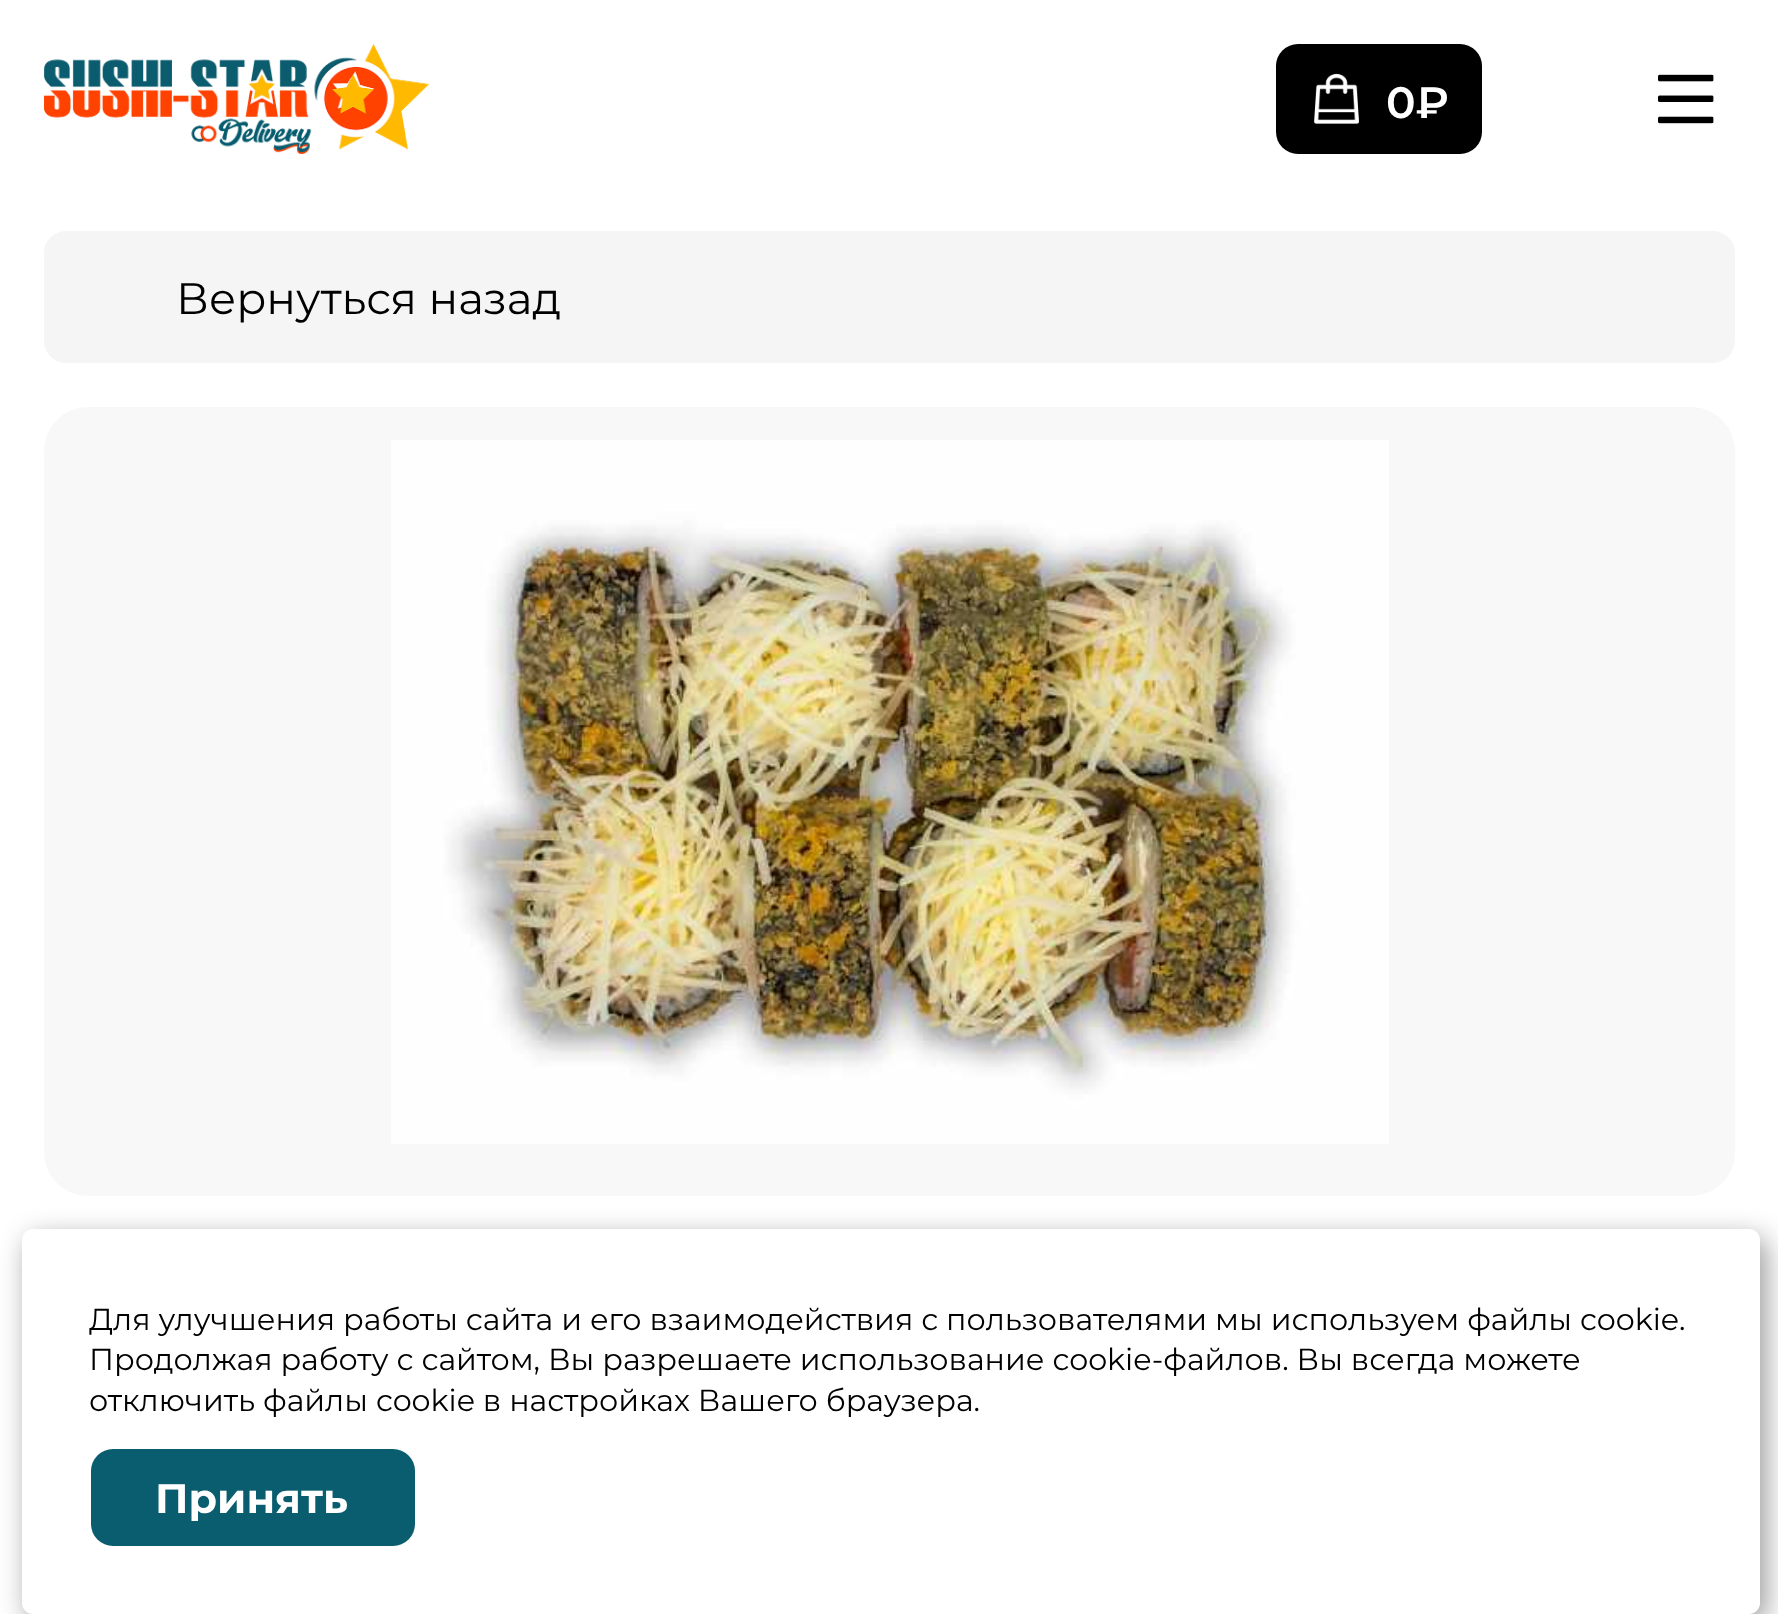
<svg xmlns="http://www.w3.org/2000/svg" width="1778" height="1614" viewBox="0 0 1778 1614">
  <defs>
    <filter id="blur1" x="-50%" y="-200%" width="200%" height="500%"><feGaussianBlur stdDeviation="14"/></filter>
  </defs>
  <rect width="100%" height="100%" fill="#ffffff"/>
  <image x="44" y="44" width="385" height="110" href="img1.png"/>
  <rect x="1276" y="44" width="206" height="110" rx="22" fill="#000000"/>
  <image x="1314" y="73" width="46" height="51" href="img2.png"/>
  <text x="1386" y="118" font-family="Montserrat" font-size="44" font-weight="600" fill="#ffffff">0₽</text>
  <image x="1658" y="74" width="56" height="50" href="img3.png"/>
  <rect x="44" y="231" width="1691" height="132" rx="22" fill="#f5f5f5"/>
  <text x="176" y="314" font-family="Montserrat" font-size="44" fill="#000000">Вернуться назад</text>
  <rect x="44" y="407" width="1691" height="789" rx="44" fill="#f8f8f8"/>
  <image x="391" y="440" width="998" height="704" href="img4.png"/>
  <rect x="28" y="1238" width="1738" height="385" rx="11" fill="#000000" fill-opacity="0.4" filter="url(#blur1)"/>
  <rect x="22" y="1229" width="1738" height="385" rx="11" fill="#ffffff"/>
  <text x="89" y="1330" font-family="Montserrat" font-size="30.25" fill="#000000">Для улучшения работы сайта и его взаимодействия с пользователями мы используем файлы cookie.</text>
  <text x="89" y="1370" font-family="Montserrat" font-size="30.25" fill="#000000">Продолжая работу с сайтом, Вы разрешаете использование cookie-файлов. Вы всегда можете</text>
  <text x="89" y="1411" font-family="Montserrat" font-size="30.25" fill="#000000">отключить файлы cookie в настройках Вашего браузера.</text>
  <rect x="91" y="1449" width="324" height="97" rx="22" fill="#095d6e"/>
  <text x="155" y="1513" font-family="Montserrat" font-size="41.25" font-weight="bold" fill="#ffffff">Принять</text>
</svg>
